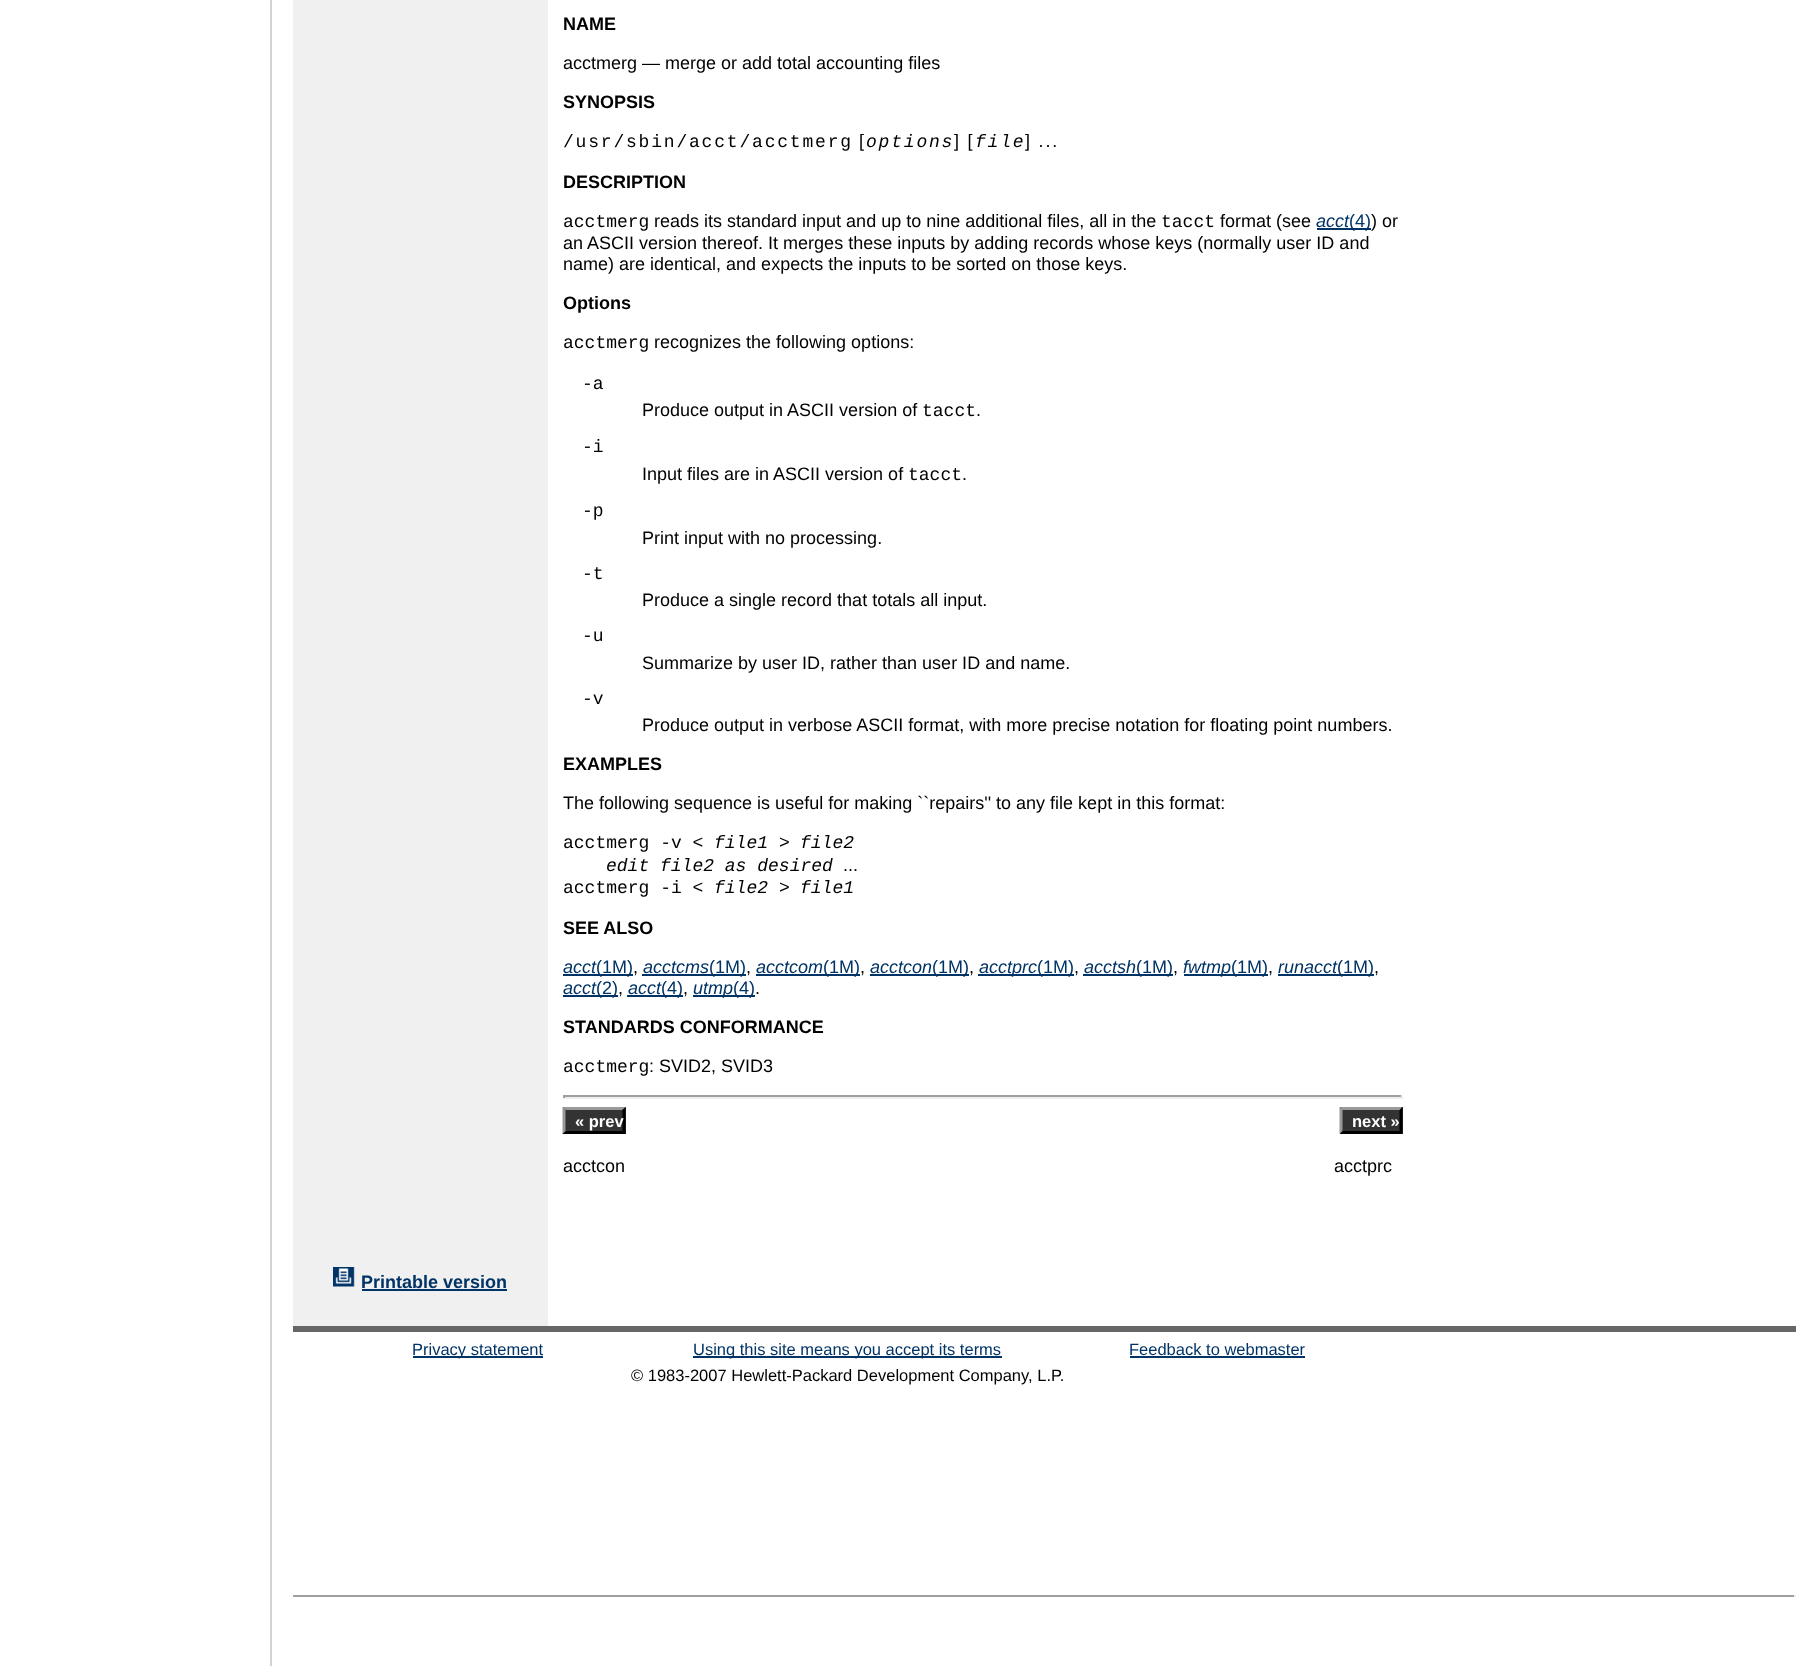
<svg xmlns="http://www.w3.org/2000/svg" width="1802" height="1666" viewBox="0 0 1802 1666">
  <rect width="100%" height="100%" fill="#ffffff"/>
  <rect x="270" y="0" width="2" height="1666" fill="#d3d3d3"/>
  <rect x="293" y="0" width="255" height="1326" fill="#f0f0f0"/>
  <text x="563" y="30" font-family="Liberation Sans" font-size="18" font-weight="bold" fill="#000000">NAME</text>
  <text x="563" y="69" font-family="Liberation Sans" font-size="18" fill="#000000">acctmerg — merge or add total accounting files</text>
  <text x="563" y="108" font-family="Liberation Sans" font-size="18" font-weight="bold" fill="#000000">SYNOPSIS</text>
  <text x="563" y="147" font-family="Liberation Mono" font-size="18" letter-spacing="1.8" fill="#000000">/usr/sbin/acct/acctmerg</text>
  <text x="859" y="147" font-family="Liberation Sans" font-size="18" letter-spacing="1.8" fill="#000000">[</text>
  <text x="866" y="147" font-family="Liberation Mono" font-size="18" font-style="italic" letter-spacing="1.8" fill="#000000">options</text>
  <text x="954" y="147" font-family="Liberation Sans" font-size="18" letter-spacing="1.8" fill="#000000">] [</text>
  <text x="975" y="147" font-family="Liberation Mono" font-size="18" font-style="italic" letter-spacing="1.8" fill="#000000">file</text>
  <text x="1025" y="147" font-family="Liberation Sans" font-size="18" letter-spacing="1.8" fill="#000000">] ...</text>
  <text x="563" y="188" font-family="Liberation Sans" font-size="18" font-weight="bold" fill="#000000">DESCRIPTION</text>
  <text x="563" y="227" font-family="Liberation Mono" font-size="18" fill="#000000">acctmerg</text>
  <text x="654" y="227" font-family="Liberation Sans" font-size="18" fill="#000000">reads its standard input and up to nine additional files, all in the</text>
  <text x="1161" y="227" font-family="Liberation Mono" font-size="18" fill="#000000">tacct</text>
  <text x="1220" y="227" font-family="Liberation Sans" font-size="18" fill="#000000">format (see</text>
  <text x="1316" y="227" font-family="Liberation Sans" font-size="18" font-style="italic" fill="#003366">acct</text>
  <rect x="1317" y="228" width="54" height="2" fill="#003366"/>
  <text x="1349" y="227" font-family="Liberation Sans" font-size="18" fill="#003366">(4)</text>
  <text x="1371" y="227" font-family="Liberation Sans" font-size="18" fill="#000000">) or</text>
  <text x="563" y="249" font-family="Liberation Sans" font-size="18" fill="#000000">an ASCII version thereof. It merges these inputs by adding records whose keys (normally user ID and</text>
  <text x="563" y="270" font-family="Liberation Sans" font-size="18" fill="#000000">name) are identical, and expects the inputs to be sorted on those keys.</text>
  <text x="563" y="309" font-family="Liberation Sans" font-size="18" font-weight="bold" fill="#000000">Options</text>
  <text x="563" y="348" font-family="Liberation Mono" font-size="18" fill="#000000">acctmerg</text>
  <text x="654" y="348" font-family="Liberation Sans" font-size="18" fill="#000000">recognizes the following options:</text>
  <text x="582" y="389" font-family="Liberation Mono" font-size="18" fill="#000000">-a</text>
  <text x="642" y="416" font-family="Liberation Sans" font-size="18" fill="#000000">Produce output in ASCII version of</text>
  <text x="922" y="416" font-family="Liberation Mono" font-size="18" fill="#000000">tacct</text>
  <text x="976" y="416" font-family="Liberation Sans" font-size="18" fill="#000000">.</text>
  <text x="582" y="452" font-family="Liberation Mono" font-size="18" fill="#000000">-i</text>
  <text x="642" y="480" font-family="Liberation Sans" font-size="18" fill="#000000">Input files are in ASCII version of</text>
  <text x="908" y="480" font-family="Liberation Mono" font-size="18" fill="#000000">tacct</text>
  <text x="962" y="480" font-family="Liberation Sans" font-size="18" fill="#000000">.</text>
  <text x="582" y="516" font-family="Liberation Mono" font-size="18" fill="#000000">-p</text>
  <text x="642" y="544" font-family="Liberation Sans" font-size="18" fill="#000000">Print input with no processing.</text>
  <text x="582" y="579" font-family="Liberation Mono" font-size="18" fill="#000000">-t</text>
  <text x="642" y="606" font-family="Liberation Sans" font-size="18" fill="#000000">Produce a single record that totals all input.</text>
  <text x="582" y="641" font-family="Liberation Mono" font-size="18" fill="#000000">-u</text>
  <text x="642" y="669" font-family="Liberation Sans" font-size="18" fill="#000000">Summarize by user ID, rather than user ID and name.</text>
  <text x="582" y="704" font-family="Liberation Mono" font-size="18" fill="#000000">-v</text>
  <text x="642" y="731" font-family="Liberation Sans" font-size="18" fill="#000000">Produce output in verbose ASCII format, with more precise notation for floating point numbers.</text>
  <text x="563" y="770" font-family="Liberation Sans" font-size="18" font-weight="bold" fill="#000000">EXAMPLES</text>
  <text x="563" y="809" font-family="Liberation Sans" font-size="18" fill="#000000">The following sequence is useful for making ``repairs'' to any file kept in this format:</text>
  <text x="563" y="848" font-family="Liberation Mono" font-size="18" fill="#000000">acctmerg -v &lt;</text>
  <text x="714" y="848" font-family="Liberation Mono" font-size="18" font-style="italic" fill="#000000">file1</text>
  <text x="779" y="848" font-family="Liberation Mono" font-size="18" fill="#000000">&gt;</text>
  <text x="800" y="848" font-family="Liberation Mono" font-size="18" font-style="italic" fill="#000000">file2</text>
  <text x="606" y="871" font-family="Liberation Mono" font-size="18" font-style="italic" fill="#000000">edit file2 as desired</text>
  <text x="843" y="871" font-family="Liberation Sans" font-size="18" fill="#000000">...</text>
  <text x="563" y="893" font-family="Liberation Mono" font-size="18" fill="#000000">acctmerg -i &lt;</text>
  <text x="714" y="893" font-family="Liberation Mono" font-size="18" font-style="italic" fill="#000000">file2</text>
  <text x="779" y="893" font-family="Liberation Mono" font-size="18" fill="#000000">&gt;</text>
  <text x="800" y="893" font-family="Liberation Mono" font-size="18" font-style="italic" fill="#000000">file1</text>
  <text x="563" y="934" font-family="Liberation Sans" font-size="18" font-weight="bold" fill="#000000">SEE ALSO</text>
  <text x="563" y="973" font-family="Liberation Sans" font-size="18" font-style="italic" fill="#003366">acct</text>
  <rect x="563" y="974" width="70" height="2" fill="#003366"/>
  <text x="596" y="973" font-family="Liberation Sans" font-size="18" fill="#003366">(1M)</text>
  <text x="633" y="973" font-family="Liberation Sans" font-size="18" fill="#000000">,</text>
  <text x="643" y="973" font-family="Liberation Sans" font-size="18" font-style="italic" fill="#003366">acctcms</text>
  <rect x="642" y="974" width="104" height="2" fill="#003366"/>
  <text x="709" y="973" font-family="Liberation Sans" font-size="18" fill="#003366">(1M)</text>
  <text x="746" y="973" font-family="Liberation Sans" font-size="18" fill="#000000">,</text>
  <text x="756" y="973" font-family="Liberation Sans" font-size="18" font-style="italic" fill="#003366">acctcom</text>
  <rect x="756" y="974" width="104" height="2" fill="#003366"/>
  <text x="823" y="973" font-family="Liberation Sans" font-size="18" fill="#003366">(1M)</text>
  <text x="860" y="973" font-family="Liberation Sans" font-size="18" fill="#000000">,</text>
  <text x="870" y="973" font-family="Liberation Sans" font-size="18" font-style="italic" fill="#003366">acctcon</text>
  <rect x="870" y="974" width="99" height="2" fill="#003366"/>
  <text x="932" y="973" font-family="Liberation Sans" font-size="18" fill="#003366">(1M)</text>
  <text x="969" y="973" font-family="Liberation Sans" font-size="18" fill="#000000">,</text>
  <rect x="978" y="974" width="96" height="2" fill="#003366"/>
  <text x="979" y="973" font-family="Liberation Sans" font-size="18" font-style="italic" fill="#003366">acctprc</text>
  <text x="1037" y="973" font-family="Liberation Sans" font-size="18" fill="#003366">(1M)</text>
  <text x="1074" y="973" font-family="Liberation Sans" font-size="18" fill="#000000">,</text>
  <text x="1084" y="973" font-family="Liberation Sans" font-size="18" font-style="italic" fill="#003366">acctsh</text>
  <rect x="1083" y="974" width="90" height="2" fill="#003366"/>
  <text x="1136" y="973" font-family="Liberation Sans" font-size="18" fill="#003366">(1M)</text>
  <text x="1173" y="973" font-family="Liberation Sans" font-size="18" fill="#000000">,</text>
  <rect x="1184" y="974" width="84" height="2" fill="#003366"/>
  <text x="1183" y="973" font-family="Liberation Sans" font-size="18" font-style="italic" fill="#003366">fwtmp</text>
  <text x="1231" y="973" font-family="Liberation Sans" font-size="18" fill="#003366">(1M)</text>
  <text x="1268" y="973" font-family="Liberation Sans" font-size="18" fill="#000000">,</text>
  <text x="1278" y="973" font-family="Liberation Sans" font-size="18" font-style="italic" fill="#003366">runacct</text>
  <rect x="1278" y="974" width="96" height="2" fill="#003366"/>
  <text x="1337" y="973" font-family="Liberation Sans" font-size="18" fill="#003366">(1M)</text>
  <text x="1374" y="973" font-family="Liberation Sans" font-size="18" fill="#000000">,</text>
  <text x="563" y="994" font-family="Liberation Sans" font-size="18" font-style="italic" fill="#003366">acct</text>
  <rect x="563" y="995" width="55" height="2" fill="#003366"/>
  <text x="596" y="994" font-family="Liberation Sans" font-size="18" fill="#003366">(2)</text>
  <text x="618" y="994" font-family="Liberation Sans" font-size="18" fill="#000000">,</text>
  <text x="628" y="994" font-family="Liberation Sans" font-size="18" font-style="italic" fill="#003366">acct</text>
  <rect x="627" y="995" width="56" height="2" fill="#003366"/>
  <text x="661" y="994" font-family="Liberation Sans" font-size="18" fill="#003366">(4)</text>
  <text x="683" y="994" font-family="Liberation Sans" font-size="18" fill="#000000">,</text>
  <rect x="693" y="995" width="39" height="2" fill="#003366"/>
  <text x="693" y="994" font-family="Liberation Sans" font-size="18" font-style="italic" fill="#003366">utmp</text>
  <rect x="732" y="995" width="23" height="2" fill="#003366"/>
  <text x="733" y="994" font-family="Liberation Sans" font-size="18" fill="#003366">(4)</text>
  <text x="755" y="994" font-family="Liberation Sans" font-size="18" fill="#000000">.</text>
  <text x="563" y="1033" font-family="Liberation Sans" font-size="18" font-weight="bold" fill="#000000">STANDARDS CONFORMANCE</text>
  <text x="563" y="1072" font-family="Liberation Mono" font-size="18" fill="#000000">acctmerg</text>
  <text x="649" y="1072" font-family="Liberation Sans" font-size="18" fill="#000000">: SVID2, SVID3</text>
  <rect x="563" y="1095" width="840" height="2" fill="#9f9f9f"/>
  <rect x="1401" y="1095" width="2" height="3" fill="#eeeeee"/>
  <rect x="563" y="1097" width="840" height="2" fill="#eeeeee"/>
  <rect x="563" y="1095" width="2" height="3" fill="#9f9f9f"/>
  <rect x="563" y="1107" width="63" height="27" fill="#333333"/>
  <path d="M562 1107H626L622 1110H566Z" fill="#999999"/>
  <path d="M625.5 1107V1134L622.5 1131V1110Z" fill="#000000"/>
  <path d="M626 1134H562L566 1131H622Z" fill="#000000"/>
  <path d="M562.5 1134V1107L565.5 1110V1131Z" fill="#999999"/>
  <text x="575" y="1127" font-family="Liberation Sans" font-size="16.5" font-weight="bold" fill="#ffffff">« prev</text>
  <text x="563" y="1172" font-family="Liberation Sans" font-size="18" fill="#000000">acctcon</text>
  <rect x="1340" y="1107" width="63" height="27" fill="#333333"/>
  <path d="M1340 1107H1402L1400 1110H1342Z" fill="#999999"/>
  <path d="M1402.5 1107V1134L1399.5 1131V1110Z" fill="#000000"/>
  <path d="M1402 1134H1340L1342 1131H1400Z" fill="#000000"/>
  <path d="M1339.5 1134V1107L1342.5 1110V1131Z" fill="#999999"/>
  <text x="1352" y="1127" font-family="Liberation Sans" font-size="16.5" font-weight="bold" fill="#ffffff">next »</text>
  <text x="1334" y="1172" font-family="Liberation Sans" font-size="18" fill="#000000">acctprc</text>
  <image x="333" y="1267" width="22" height="20" href="img1.png"/>
  <text x="361" y="1288" font-family="Liberation Sans" font-size="18" font-weight="bold" fill="#003366">Printable version</text>
  <rect x="362" y="1289" width="145" height="2" fill="#003366"/>
  <rect x="293" y="1326" width="1503" height="6" fill="#666666"/>
  <rect x="413" y="1356" width="130" height="2" fill="#003366"/>
  <text x="412" y="1355" font-family="Liberation Sans" font-size="16.5" fill="#003366">Privacy statement</text>
  <rect x="693" y="1356" width="309" height="2" fill="#003366"/>
  <text x="693" y="1355" font-family="Liberation Sans" font-size="16.5" fill="#003366">Using this site means you accept its terms</text>
  <text x="1129" y="1355" font-family="Liberation Sans" font-size="16.5" fill="#003366">Feedback to webmaster</text>
  <rect x="1130" y="1356" width="175" height="2" fill="#003366"/>
  <text x="631" y="1381" font-family="Liberation Sans" font-size="16.5" fill="#000000">© 1983-2007 Hewlett-Packard Development Company, L.P.</text>
  <rect x="293" y="1595" width="1503" height="2" fill="#9f9f9f"/>
  <rect x="1794" y="1595" width="2" height="2" fill="#eeeeee"/>
</svg>
